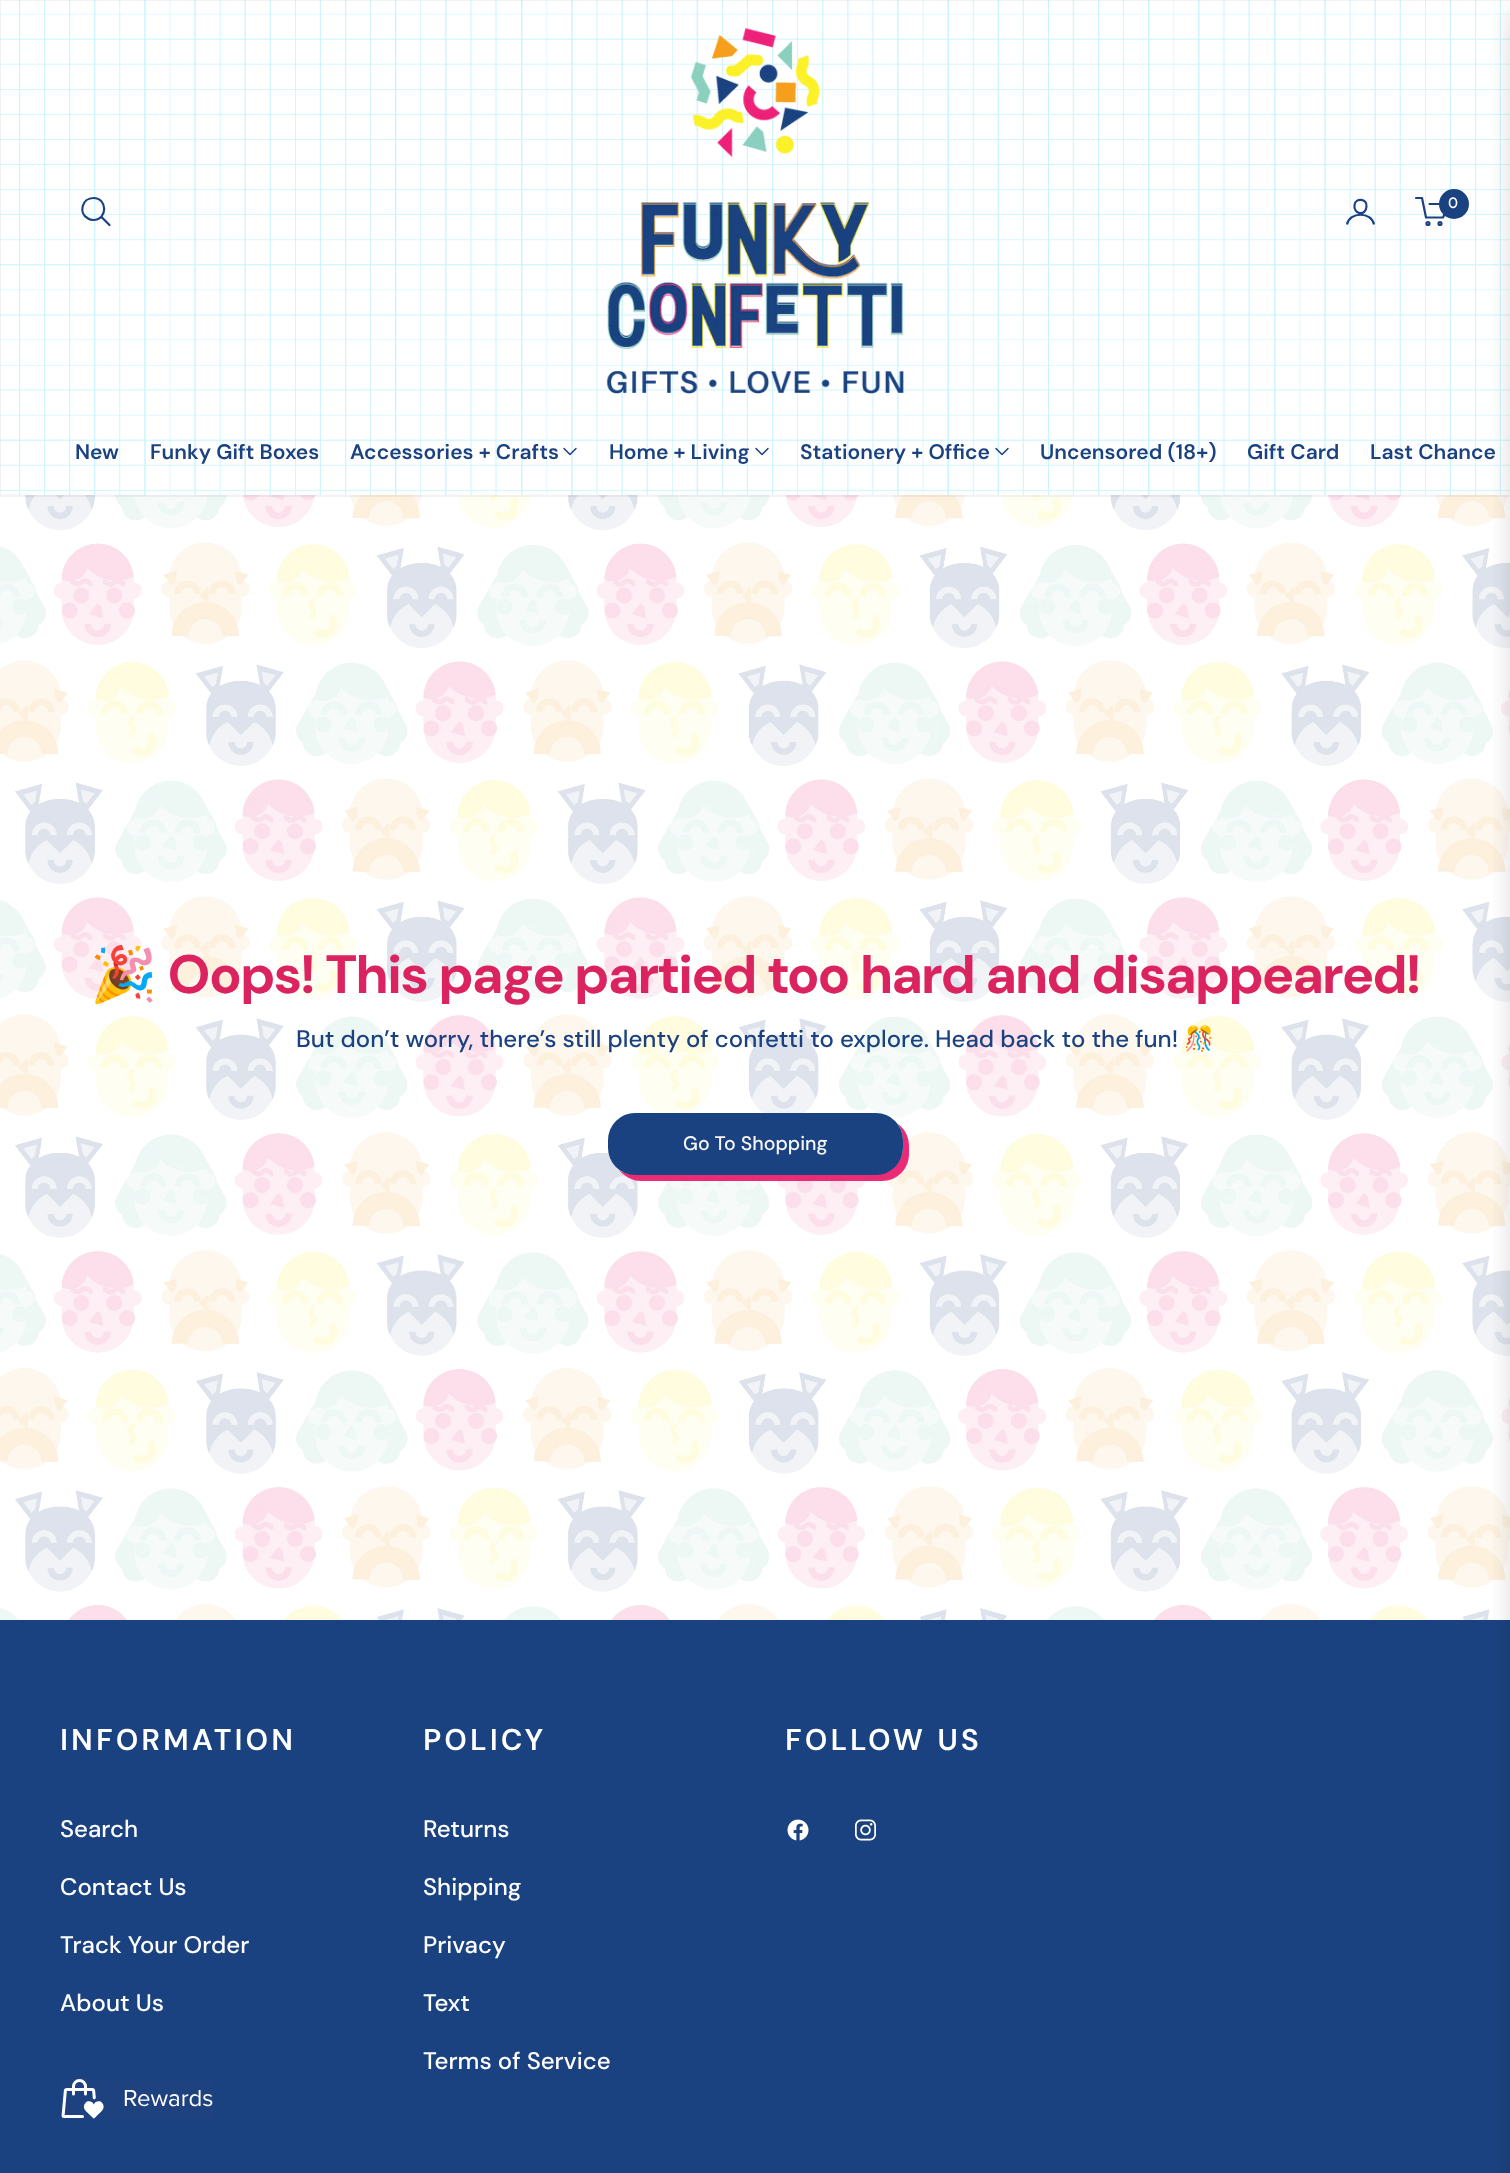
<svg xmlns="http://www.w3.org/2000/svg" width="1510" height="2173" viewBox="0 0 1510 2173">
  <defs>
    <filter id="blur1" x="-50%" y="-200%" width="200%" height="500%"><feGaussianBlur stdDeviation="12"/></filter>
  </defs>
  <rect width="100%" height="100%" fill="#ffffff"/>
  <image x="0" y="0" width="1510" height="495" href="img1.png"/>
  <image x="0" y="495" width="1510" height="1125" href="img6.png"/>
  <rect x="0" y="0" width="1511" height="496" fill="none" stroke="#000000" stroke-opacity="0.05" stroke-width="2"/>
  <path d="M93.5 198C82 198 78 213 88 218.5C89.5 219.5 91.5 220 93.5 220C108 219.5 107.5 198 93.5 198Z" fill="none" stroke="#1b4280" stroke-width="2.2"/>
  <path d="M102 217.5L109.5 225" fill="none" stroke="#1b4280" stroke-width="2.2" stroke-linecap="round"/>
  <image x="606" y="27" width="298" height="367" href="img2.png"/>
  <path d="M1366.5 206.5C1366 216.5 1353 214.5 1354.5 205C1355.5 197.5 1367.5 198.5 1366.5 206.5Z" fill="none" stroke="#1b4280" stroke-width="2.2" stroke-linecap="round" stroke-linejoin="round"/>
  <path d="M1347 224.5C1349.5 211.5 1371.5 211.5 1374 224.5" fill="none" stroke="#1b4280" stroke-width="2.2"/>
  <path d="M1429.5 204H1449L1443 217.5H1426L1422 198H1416" fill="none" stroke="#1b4280" stroke-width="2.2" stroke-linecap="round" stroke-linejoin="round"/>
  <circle cx="1428" cy="223.5" r="1.5" fill="none" stroke="#1b4280" stroke-width="2.2"/>
  <circle cx="1440" cy="223.5" r="1.5" fill="none" stroke="#1b4280" stroke-width="2.2"/>
  <circle cx="1454" cy="204" r="15" fill="#1b4280"/>
  <text x="1448" y="208" font-family="'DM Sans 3'" font-size="15" font-weight="500" fill="#ffffff">0</text>
  <rect x="0" y="1620" width="1510" height="553" fill="#1b4280"/>
  <rect x="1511" y="12" width="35" height="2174" fill="#000000" fill-opacity="0.15" filter="url(#blur1)"/>
  <text x="75" y="459" font-family="'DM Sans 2'" font-size="21" font-weight="600" fill="#1b4280">New</text>
  <text x="150" y="459" font-family="'DM Sans 2'" font-size="21" font-weight="600" fill="#1b4280">Funky Gift Boxes</text>
  <text x="350" y="459" font-family="'DM Sans 2'" font-size="21" font-weight="600" fill="#1b4280">Accessories + Crafts</text>
  <image x="563" y="447" width="14" height="9" href="img3.png"/>
  <text x="609" y="459" font-family="'DM Sans 2'" font-size="21" font-weight="600" fill="#1b4280">Home + Living</text>
  <image x="755" y="447" width="14" height="9" href="img4.png"/>
  <text x="800" y="459" font-family="'DM Sans 2'" font-size="21" font-weight="600" fill="#1b4280">Stationery + Office</text>
  <image x="995" y="447" width="14" height="9" href="img5.png"/>
  <text x="1040" y="459" font-family="'DM Sans 2'" font-size="21" font-weight="600" fill="#1b4280">Uncensored (18+)</text>
  <text x="1247" y="459" font-family="'DM Sans 2'" font-size="21" font-weight="600" fill="#1b4280">Gift Card</text>
  <text x="1370" y="459" font-family="'DM Sans 2'" font-size="21" font-weight="600" fill="#1b4280">Last Chance</text>
  <text x="90" y="993" font-family="Noto Color Emoji" font-size="54" font-weight="bold" fill="#da235f">🎉</text>
  <text x="168" y="993" font-family="DM Sans" font-size="54" font-weight="bold" fill="#da235f">Oops! This page partied too hard and disappeared!</text>
  <text x="296" y="1047" font-family="DM Sans" font-size="24" font-weight="500" fill="#1b4280">But don’t worry, there’s still plenty of confetti to explore. Head back to the fun!</text>
  <text x="1184" y="1047" font-family="Noto Color Emoji" font-size="24" fill="#1b4280">🎊</text>
  <path d="M619 1170C624 1176 632 1181 641 1181H882C897 1181 909 1169 909 1154V1146C909 1137 905 1129 898 1124C901 1129 903 1134 903 1140V1148C903 1162 891 1174 876 1174H634C629 1174 623 1173 619 1170Z" fill="#ec2b76"/>
  <rect x="608" y="1113" width="295" height="62" rx="27" fill="#1b4280"/>
  <text x="683" y="1150" font-family="'DM Sans 2'" font-size="19.5" font-weight="500" fill="#f7f7f7">Go To Shopping</text>
  <text x="60" y="1750" font-family="DM Sans" font-size="30" font-weight="600" letter-spacing="3" fill="#ffffff">INFORMATION</text>
  <text x="60" y="1837" font-family="DM Sans" font-size="24" font-weight="500" fill="#ffffff">Search</text>
  <text x="60" y="1895" font-family="DM Sans" font-size="24" font-weight="500" fill="#ffffff">Contact Us</text>
  <text x="60" y="1953" font-family="DM Sans" font-size="24" font-weight="500" fill="#ffffff">Track Your Order</text>
  <text x="60" y="2011" font-family="DM Sans" font-size="24" font-weight="500" fill="#ffffff">About Us</text>
  <text x="423" y="1750" font-family="DM Sans" font-size="30" font-weight="600" letter-spacing="3" fill="#ffffff">POLICY</text>
  <text x="423" y="1837" font-family="DM Sans" font-size="24" font-weight="500" fill="#ffffff">Returns</text>
  <text x="423" y="1895" font-family="DM Sans" font-size="24" font-weight="500" fill="#ffffff">Shipping</text>
  <text x="423" y="1953" font-family="DM Sans" font-size="24" font-weight="500" fill="#ffffff">Privacy</text>
  <text x="423" y="2011" font-family="DM Sans" font-size="24" font-weight="500" fill="#ffffff">Text</text>
  <text x="423" y="2069" font-family="DM Sans" font-size="24" font-weight="500" fill="#ffffff">Terms of Service</text>
  <text x="785" y="1750" word-spacing="1" font-family="DM Sans" font-size="30" font-weight="600" letter-spacing="3" fill="#ffffff">FOLLOW US</text>
  <image x="787" y="1819" width="22" height="22" href="img7.png"/>
  <image x="855" y="1819" width="21" height="22" href="img8.png"/>
  <image x="61" y="2079" width="152" height="40" href="img9.png"/>
</svg>
